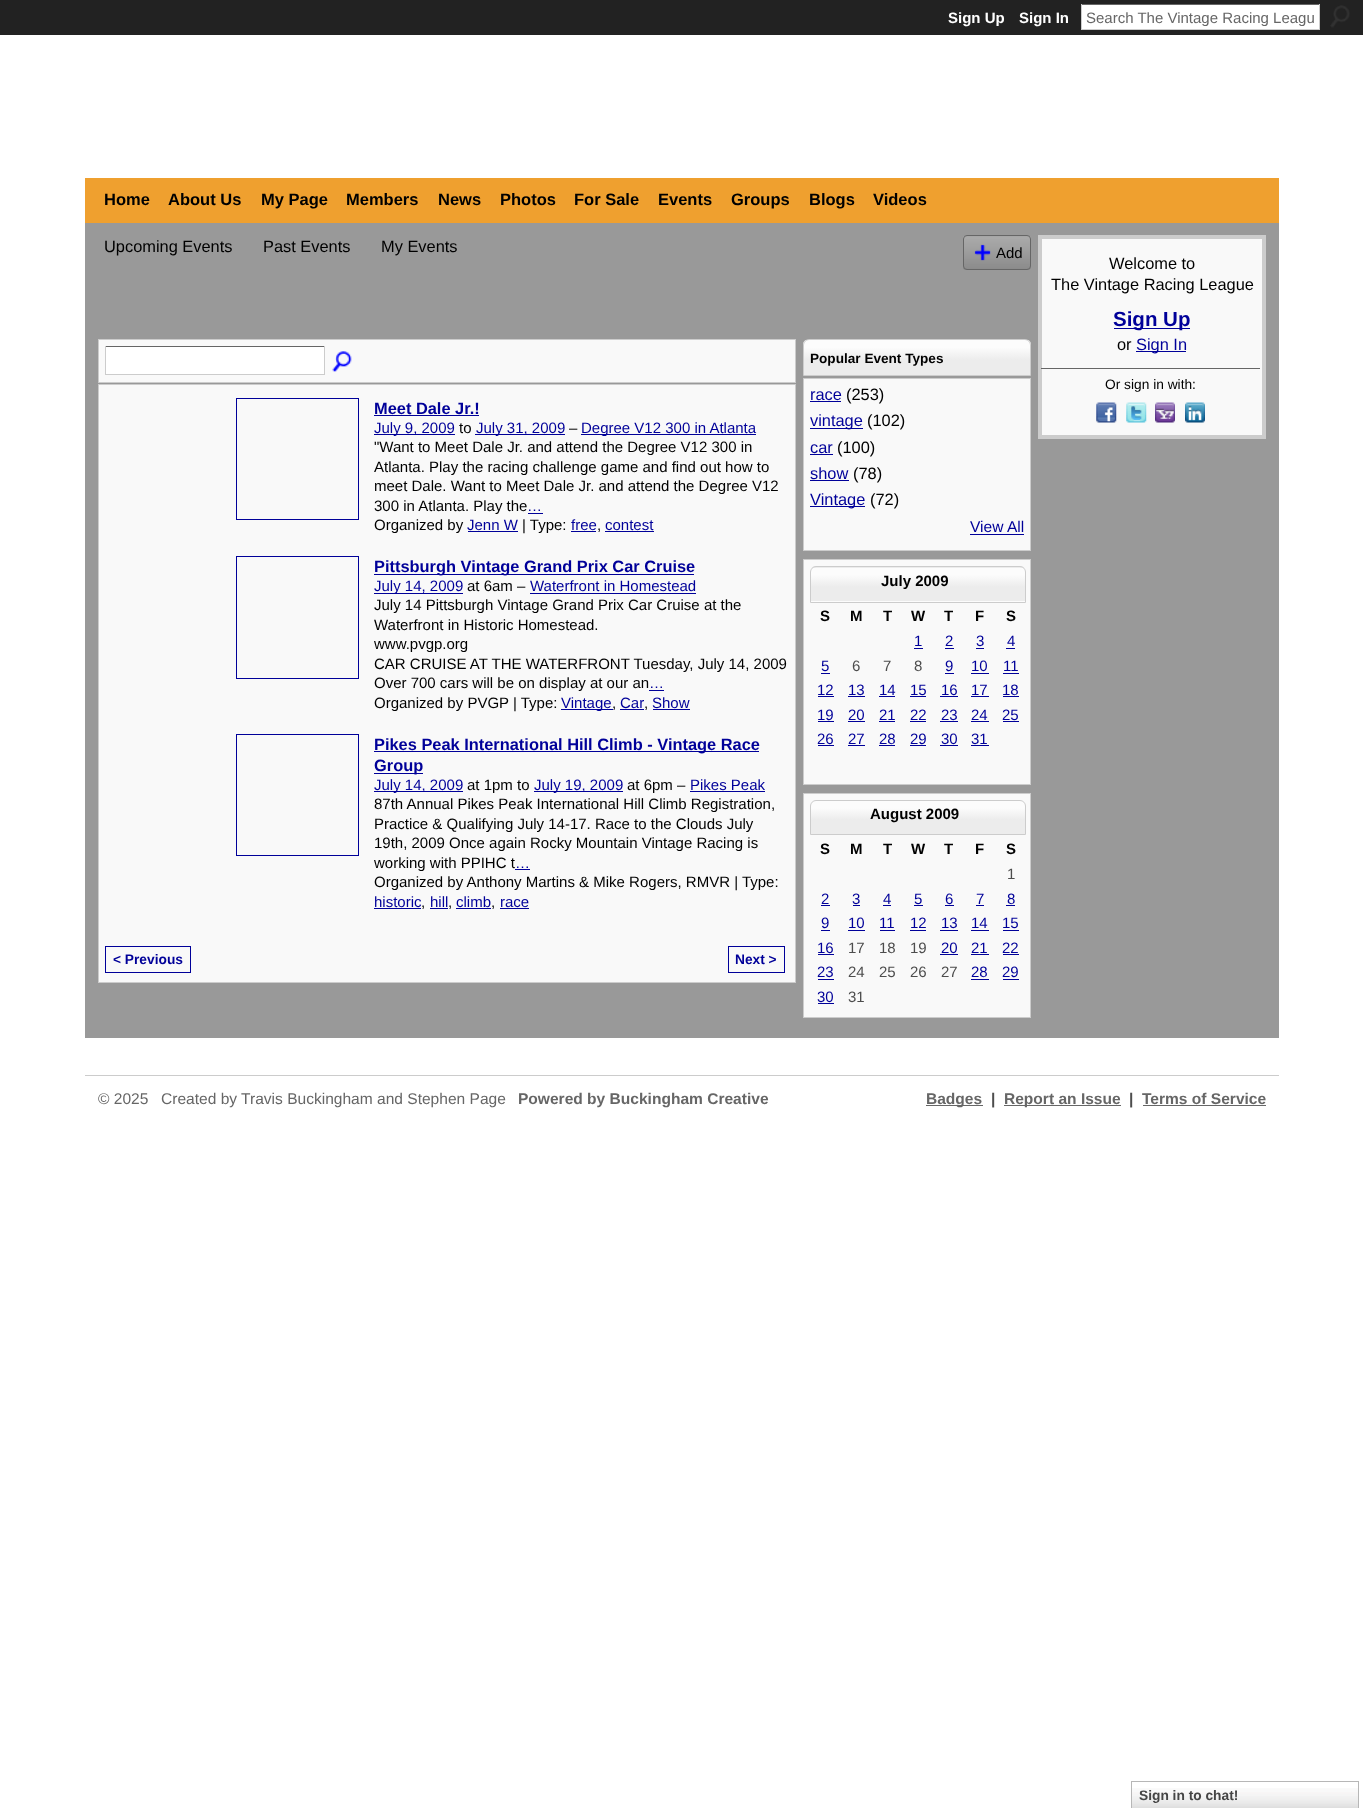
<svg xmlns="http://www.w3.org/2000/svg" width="1363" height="1808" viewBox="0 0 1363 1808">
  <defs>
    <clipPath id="clip1"><rect x="1086" y="9" width="229" height="17"/></clipPath>
    <clipPath id="clip2"><path d="M809 339H1025C1028.5 339 1031 341.5 1031 345V376H803V345C803 341.5 805.5 339 809 339Z"/></clipPath>
    <linearGradient id="g1" gradientUnits="userSpaceOnUse" x1="804" y1="340" x2="804" y2="375"><stop offset="0.21" stop-color="#fcfcfc"/><stop offset="0.57" stop-color="#ececec"/></linearGradient>
    <clipPath id="clip3"><path d="M816 566H1020C1023.5 566 1026 568.5 1026 572V603H810V572C810 568.5 812.5 566 816 566Z"/></clipPath>
    <linearGradient id="g2" gradientUnits="userSpaceOnUse" x1="811" y1="534" x2="811" y2="568"><stop offset="0.21" stop-color="#fcfcfc"/><stop offset="0.57" stop-color="#ececec"/></linearGradient>
    <linearGradient id="g3" gradientUnits="userSpaceOnUse" x1="811" y1="568" x2="811" y2="601"><stop offset="0.21" stop-color="#fcfcfc"/><stop offset="0.57" stop-color="#ececec"/></linearGradient>
    <linearGradient id="g4" gradientUnits="userSpaceOnUse" x1="811" y1="601" x2="811" y2="635"><stop offset="0.21" stop-color="#fcfcfc"/><stop offset="0.57" stop-color="#ececec"/></linearGradient>
    <clipPath id="clip4"><path d="M816 800H1020C1023.5 800 1026 802.5 1026 806V835H810V806C810 802.5 812.5 800 816 800Z"/></clipPath>
    <linearGradient id="g5" gradientUnits="userSpaceOnUse" x1="811" y1="801" x2="811" y2="834"><stop offset="0.21" stop-color="#fcfcfc"/><stop offset="0.57" stop-color="#ececec"/></linearGradient>
  </defs>
  <rect width="100%" height="100%" fill="#ffffff"/>
  <rect x="0" y="0" width="1363" height="35" fill="#222222"/>
  <text x="948" y="23" font-family="Liberation Sans" font-size="15" font-weight="bold" fill="#ffffff">Sign Up</text>
  <text x="1019" y="23" font-family="Liberation Sans" font-size="15" font-weight="bold" fill="#ffffff">Sign In</text>
  <rect x="1082" y="5" width="237" height="24" fill="#ffffff"/>
  <rect x="1081" y="4" width="239" height="1" fill="#666666"/>
  <rect x="1319" y="4" width="1" height="26" fill="#cccccc"/>
  <rect x="1081" y="29" width="239" height="1" fill="#cccccc"/>
  <rect x="1081" y="4" width="1" height="26" fill="#cccccc"/>
  <g clip-path="url(#clip1)">
    <text x="1086" y="23" font-family="Liberation Sans" font-size="15" fill="#666666">Search The Vintage Racing Leagu</text>
  </g>
  <image x="1330" y="5" width="20" height="23" href="img1.png"/>
  <rect x="85" y="178" width="1194" height="45" fill="#efa02f"/>
  <text x="104" y="205" font-family="Liberation Sans" font-size="16.5" font-weight="bold" fill="#000000">Home</text>
  <text x="168" y="205" font-family="Liberation Sans" font-size="16.5" font-weight="bold" fill="#000000">About Us</text>
  <text x="261" y="205" font-family="Liberation Sans" font-size="16.5" font-weight="bold" fill="#000000">My Page</text>
  <text x="346" y="205" font-family="Liberation Sans" font-size="16.5" font-weight="bold" fill="#000000">Members</text>
  <text x="438" y="205" font-family="Liberation Sans" font-size="16.5" font-weight="bold" fill="#000000">News</text>
  <text x="500" y="205" font-family="Liberation Sans" font-size="16.5" font-weight="bold" fill="#000000">Photos</text>
  <text x="574" y="205" font-family="Liberation Sans" font-size="16.5" font-weight="bold" fill="#000000">For Sale</text>
  <text x="658" y="205" font-family="Liberation Sans" font-size="16.5" font-weight="bold" fill="#000000">Events</text>
  <text x="731" y="205" font-family="Liberation Sans" font-size="16.5" font-weight="bold" fill="#000000">Groups</text>
  <text x="809" y="205" font-family="Liberation Sans" font-size="16.5" font-weight="bold" fill="#000000">Blogs</text>
  <text x="873" y="205" font-family="Liberation Sans" font-size="16.5" font-weight="bold" fill="#000000">Videos</text>
  <rect x="85" y="223" width="1194" height="815" fill="#999999"/>
  <text x="104" y="252" font-family="Liberation Sans" font-size="16.4" fill="#000000">Upcoming Events</text>
  <text x="263" y="252" font-family="Liberation Sans" font-size="16.4" fill="#000000">Past Events</text>
  <text x="381" y="252" font-family="Liberation Sans" font-size="16.4" fill="#000000">My Events</text>
  <image x="963" y="236" width="68" height="34" href="img2.png"/>
  <rect x="963.5" y="235.5" width="67" height="34" rx="3.5" fill="none" stroke="#666666"/>
  <image x="974" y="244" width="17" height="17" href="img3.png"/>
  <text x="996" y="258" font-family="Liberation Sans" font-size="15" fill="#000000">Add</text>
  <rect x="98.5" y="339.5" width="697" height="43" fill="#f9f9f9" stroke="#cccccc"/>
  <rect x="106" y="347" width="218" height="27" fill="#ffffff"/>
  <rect x="105" y="346" width="220" height="1" fill="#666666"/>
  <rect x="324" y="346" width="1" height="29" fill="#cccccc"/>
  <rect x="105" y="374" width="220" height="1" fill="#cccccc"/>
  <rect x="105" y="346" width="1" height="29" fill="#cccccc"/>
  <image x="332" y="351" width="20" height="21" href="img4.png"/>
  <rect x="98.5" y="384.5" width="697" height="598" fill="#f9f9f9" stroke="#cccccc"/>
  <rect x="236.5" y="398.5" width="122" height="121" fill="none" stroke="#000099"/>
  <text x="374" y="414" font-family="Liberation Sans" font-size="16.4" font-weight="bold" fill="#000099">Meet Dale Jr.!</text>
  <rect x="374" y="415" width="105" height="1" fill="#000099"/>
  <rect x="374" y="434" width="81" height="1" fill="#000099"/>
  <text x="374" y="433" font-family="Liberation Sans" font-size="15" fill="#000099">July 9, 2009</text>
  <text x="459" y="433" font-family="Liberation Sans" font-size="15" fill="#000000">to</text>
  <rect x="475" y="434" width="90" height="1" fill="#000099"/>
  <text x="476" y="433" font-family="Liberation Sans" font-size="15" fill="#000099">July 31, 2009</text>
  <text x="569" y="433" font-family="Liberation Sans" font-size="15" fill="#000000">–</text>
  <rect x="581" y="434" width="175" height="1" fill="#000099"/>
  <text x="581" y="433" font-family="Liberation Sans" font-size="15" fill="#000099">Degree V12 300 in Atlanta</text>
  <text x="374" y="452" font-family="Liberation Sans" font-size="15" fill="#000000">"Want to Meet Dale Jr. and attend the Degree V12 300 in</text>
  <text x="374" y="472" font-family="Liberation Sans" font-size="15" fill="#000000">Atlanta. Play the racing challenge game and find out how to</text>
  <text x="374" y="491" font-family="Liberation Sans" font-size="15" fill="#000000">meet Dale. Want to Meet Dale Jr. and attend the Degree V12</text>
  <text x="374" y="511" font-family="Liberation Sans" font-size="15" fill="#000000">300 in Atlanta. Play the</text>
  <text x="527" y="511" font-family="Liberation Sans" font-size="15" fill="#000099">…</text>
  <rect x="528" y="513" width="15" height="1" fill="#000099"/>
  <text x="374" y="530" font-family="Liberation Sans" font-size="15" fill="#000000">Organized by</text>
  <text x="467" y="530" font-family="Liberation Sans" font-size="15" fill="#000099">Jenn W</text>
  <rect x="468" y="531" width="50" height="1" fill="#000099"/>
  <text x="522" y="530" font-family="Liberation Sans" font-size="15" fill="#000000">| Type:</text>
  <text x="571" y="530" font-family="Liberation Sans" font-size="15" fill="#000099">free</text>
  <rect x="571" y="531" width="25" height="1" fill="#000099"/>
  <text x="597" y="530" font-family="Liberation Sans" font-size="15" fill="#000000">,</text>
  <text x="605" y="530" font-family="Liberation Sans" font-size="15" fill="#000099">contest</text>
  <rect x="605" y="531" width="49" height="1" fill="#000099"/>
  <rect x="236.5" y="556.5" width="122" height="122" fill="none" stroke="#000099"/>
  <rect x="374" y="574" width="320" height="1" fill="#000099"/>
  <text x="374" y="572" font-family="Liberation Sans" font-size="16.4" font-weight="bold" fill="#000099">Pittsburgh Vintage Grand Prix Car Cruise</text>
  <rect x="374" y="593" width="89" height="1" fill="#000099"/>
  <text x="374" y="591" font-family="Liberation Sans" font-size="15" fill="#000099">July 14, 2009</text>
  <text x="467" y="591" font-family="Liberation Sans" font-size="15" fill="#000000">at 6am –</text>
  <text x="530" y="591" font-family="Liberation Sans" font-size="15" fill="#000099">Waterfront in Homestead</text>
  <rect x="530" y="593" width="166" height="1" fill="#000099"/>
  <text x="374" y="610" font-family="Liberation Sans" font-size="15" fill="#000000">July 14 Pittsburgh Vintage Grand Prix Car Cruise at the</text>
  <text x="374" y="630" font-family="Liberation Sans" font-size="15" fill="#000000">Waterfront in Historic Homestead.</text>
  <text x="374" y="649" font-family="Liberation Sans" font-size="15" fill="#000000">www.pvgp.org</text>
  <text x="374" y="669" font-family="Liberation Sans" font-size="15" fill="#000000">CAR CRUISE AT THE WATERFRONT Tuesday, July 14, 2009</text>
  <text x="374" y="688" font-family="Liberation Sans" font-size="15" fill="#000000">Over 700 cars will be on display at our an</text>
  <text x="649" y="688" font-family="Liberation Sans" font-size="15" fill="#000099">…</text>
  <rect x="649" y="690" width="15" height="1" fill="#000099"/>
  <text x="374" y="708" font-family="Liberation Sans" font-size="15" fill="#000000">Organized by PVGP | Type:</text>
  <rect x="561" y="709" width="52" height="1" fill="#000099"/>
  <text x="561" y="708" font-family="Liberation Sans" font-size="15" fill="#000099">Vintage</text>
  <text x="612" y="708" font-family="Liberation Sans" font-size="15" fill="#000000">,</text>
  <text x="620" y="708" font-family="Liberation Sans" font-size="15" fill="#000099">Car</text>
  <rect x="620" y="709" width="24" height="1" fill="#000099"/>
  <text x="644" y="708" font-family="Liberation Sans" font-size="15" fill="#000000">,</text>
  <text x="652" y="708" font-family="Liberation Sans" font-size="15" fill="#000099">Show</text>
  <rect x="653" y="709" width="37" height="1" fill="#000099"/>
  <rect x="236.5" y="734.5" width="122" height="121" fill="none" stroke="#000099"/>
  <rect x="374" y="751" width="385" height="1" fill="#000099"/>
  <text x="374" y="750" font-family="Liberation Sans" font-size="16.4" font-weight="bold" fill="#000099">Pikes Peak International Hill Climb - Vintage Race</text>
  <rect x="374" y="773" width="49" height="1" fill="#000099"/>
  <text x="374" y="771" font-family="Liberation Sans" font-size="16.4" font-weight="bold" fill="#000099">Group</text>
  <rect x="374" y="791" width="89" height="1" fill="#000099"/>
  <text x="374" y="790" font-family="Liberation Sans" font-size="15" fill="#000099">July 14, 2009</text>
  <text x="467" y="790" font-family="Liberation Sans" font-size="15" fill="#000000">at 1pm to</text>
  <rect x="534" y="791" width="89" height="1" fill="#000099"/>
  <text x="534" y="790" font-family="Liberation Sans" font-size="15" fill="#000099">July 19, 2009</text>
  <text x="627" y="790" font-family="Liberation Sans" font-size="15" fill="#000000">at 6pm –</text>
  <text x="690" y="790" font-family="Liberation Sans" font-size="15" fill="#000099">Pikes Peak</text>
  <rect x="690" y="791" width="75" height="1" fill="#000099"/>
  <text x="374" y="809" font-family="Liberation Sans" font-size="15" fill="#000000">87th Annual Pikes Peak International Hill Climb Registration,</text>
  <text x="374" y="829" font-family="Liberation Sans" font-size="15" fill="#000000">Practice &amp; Qualifying July 14-17. Race to the Clouds July</text>
  <text x="374" y="848" font-family="Liberation Sans" font-size="15" fill="#000000">19th, 2009 Once again Rocky Mountain Vintage Racing is</text>
  <text x="374" y="868" font-family="Liberation Sans" font-size="15" fill="#000000">working with PPIHC t</text>
  <text x="515" y="868" font-family="Liberation Sans" font-size="15" fill="#000099">…</text>
  <rect x="515" y="869" width="15" height="1" fill="#000099"/>
  <text x="374" y="887" font-family="Liberation Sans" font-size="15" fill="#000000">Organized by Anthony Martins &amp; Mike Rogers, RMVR | Type:</text>
  <text x="374" y="907" font-family="Liberation Sans" font-size="15" fill="#000099">historic</text>
  <rect x="374" y="908" width="47" height="1" fill="#000099"/>
  <text x="421" y="907" font-family="Liberation Sans" font-size="15" fill="#000000">,</text>
  <text x="430" y="907" font-family="Liberation Sans" font-size="15" fill="#000099">hill</text>
  <rect x="430" y="908" width="18" height="1" fill="#000099"/>
  <text x="448" y="907" font-family="Liberation Sans" font-size="15" fill="#000000">,</text>
  <text x="456" y="907" font-family="Liberation Sans" font-size="15" fill="#000099">climb</text>
  <rect x="456" y="908" width="35" height="1" fill="#000099"/>
  <text x="491" y="907" font-family="Liberation Sans" font-size="15" fill="#000000">,</text>
  <text x="500" y="907" font-family="Liberation Sans" font-size="15" fill="#000099">race</text>
  <rect x="500" y="908" width="29" height="1" fill="#000099"/>
  <rect x="105.5" y="946.5" width="85" height="26" fill="none" stroke="#000099"/>
  <text x="113" y="964" font-family="Liberation Sans" font-size="13.75" font-weight="bold" fill="#000099">&lt; Previous</text>
  <rect x="728.5" y="946.5" width="56" height="26" fill="none" stroke="#000099"/>
  <text x="735" y="964" font-family="Liberation Sans" font-size="13.75" font-weight="bold" fill="#000099">Next &gt;</text>
  <g clip-path="url(#clip2)">
    <rect x="803" y="340" width="228" height="35" fill="url(#g1)"/>
  </g>
  <path d="M809 339.5H1025C1028 339.5 1030.5 342 1030.5 345V375.5H803.5V345C803.5 342 806 339.5 809 339.5Z" fill="none" stroke="#cccccc"/>
  <text x="810" y="363" font-family="Liberation Sans" font-size="13.6" font-weight="bold" fill="#000000">Popular Event Types</text>
  <rect x="803.5" y="378.5" width="227" height="172" fill="#f9f9f9" stroke="#cccccc"/>
  <text x="810" y="400" font-family="Liberation Sans" font-size="16.4" fill="#000099">race</text>
  <rect x="810" y="401" width="31" height="1" fill="#000099"/>
  <text x="846" y="400" font-family="Liberation Sans" font-size="16.4" fill="#000000">(253)</text>
  <rect x="810" y="428" width="53" height="1" fill="#000099"/>
  <text x="810" y="426" font-family="Liberation Sans" font-size="16.4" fill="#000099">vintage</text>
  <text x="867" y="426" font-family="Liberation Sans" font-size="16.4" fill="#000000">(102)</text>
  <text x="810" y="453" font-family="Liberation Sans" font-size="16.4" fill="#000099">car</text>
  <rect x="810" y="454" width="23" height="1" fill="#000099"/>
  <text x="837" y="453" font-family="Liberation Sans" font-size="16.4" fill="#000000">(100)</text>
  <text x="810" y="479" font-family="Liberation Sans" font-size="16.4" fill="#000099">show</text>
  <rect x="810" y="480" width="39" height="1" fill="#000099"/>
  <text x="853" y="479" font-family="Liberation Sans" font-size="16.4" fill="#000000">(78)</text>
  <rect x="810" y="506" width="55" height="1" fill="#000099"/>
  <text x="810" y="505" font-family="Liberation Sans" font-size="16.4" fill="#000099">Vintage</text>
  <text x="870" y="505" font-family="Liberation Sans" font-size="16.4" fill="#000000">(72)</text>
  <text x="970" y="532" font-family="Liberation Sans" font-size="15.55" fill="#000099">View All</text>
  <rect x="970" y="534" width="54" height="1" fill="#000099"/>
  <rect x="803.5" y="559.5" width="227" height="225" fill="#f9f9f9" stroke="#cccccc"/>
  <g clip-path="url(#clip3)">
    <rect x="810" y="566" width="216" height="2" fill="url(#g2)"/>
    <rect x="810" y="568" width="216" height="33" fill="url(#g3)"/>
  </g>
  <rect x="810" y="601" width="216" height="1" fill="url(#g4)"/>
  <path d="M816 566.5H1020C1023 566.5 1025.5 569 1025.5 572V602.5H810.5V572C810.5 569 813 566.5 816 566.5Z" fill="none" stroke="#cccccc"/>
  <text x="881" y="586" font-family="Liberation Sans" font-size="15" font-weight="bold" fill="#000000">July 2009</text>
  <text x="820" y="621" font-family="Liberation Sans" font-size="15" font-weight="bold" fill="#000000">S</text>
  <text x="850" y="621" font-family="Liberation Sans" font-size="15" font-weight="bold" fill="#000000">M</text>
  <text x="883" y="621" font-family="Liberation Sans" font-size="15" font-weight="bold" fill="#000000">T</text>
  <text x="911" y="621" font-family="Liberation Sans" font-size="15" font-weight="bold" fill="#000000">W</text>
  <text x="944" y="621" font-family="Liberation Sans" font-size="15" font-weight="bold" fill="#000000">T</text>
  <text x="975" y="621" font-family="Liberation Sans" font-size="15" font-weight="bold" fill="#000000">F</text>
  <text x="1006" y="621" font-family="Liberation Sans" font-size="15" font-weight="bold" fill="#000000">S</text>
  <text x="914" y="646" font-family="Liberation Sans" font-size="15" fill="#000099">1</text>
  <rect x="914" y="648" width="9" height="1" fill="#000099"/>
  <text x="945" y="646" font-family="Liberation Sans" font-size="15" fill="#000099">2</text>
  <rect x="945" y="648" width="9" height="1" fill="#000099"/>
  <text x="976" y="646" font-family="Liberation Sans" font-size="15" fill="#000099">3</text>
  <rect x="976" y="648" width="8" height="1" fill="#000099"/>
  <text x="1007" y="646" font-family="Liberation Sans" font-size="15" fill="#000099">4</text>
  <rect x="1006" y="648" width="9" height="1" fill="#000099"/>
  <text x="821" y="671" font-family="Liberation Sans" font-size="15" fill="#000099">5</text>
  <rect x="821" y="673" width="9" height="1" fill="#000099"/>
  <text x="852" y="671" font-family="Liberation Sans" font-size="15" fill="#4d4d4d">6</text>
  <text x="883" y="671" font-family="Liberation Sans" font-size="15" fill="#4d4d4d">7</text>
  <text x="914" y="671" font-family="Liberation Sans" font-size="15" fill="#4d4d4d">8</text>
  <text x="945" y="671" font-family="Liberation Sans" font-size="15" fill="#000099">9</text>
  <rect x="945" y="673" width="9" height="1" fill="#000099"/>
  <text x="971" y="671" font-family="Liberation Sans" font-size="15" fill="#000099">10</text>
  <rect x="971" y="673" width="18" height="1" fill="#000099"/>
  <text x="1003" y="671" font-family="Liberation Sans" font-size="15" fill="#000099">11</text>
  <rect x="1003" y="673" width="16" height="1" fill="#000099"/>
  <text x="817" y="695" font-family="Liberation Sans" font-size="15" fill="#000099">12</text>
  <rect x="818" y="696" width="16" height="1" fill="#000099"/>
  <text x="848" y="695" font-family="Liberation Sans" font-size="15" fill="#000099">13</text>
  <rect x="848" y="696" width="17" height="1" fill="#000099"/>
  <text x="879" y="695" font-family="Liberation Sans" font-size="15" fill="#000099">14</text>
  <rect x="879" y="696" width="16" height="1" fill="#000099"/>
  <text x="910" y="695" font-family="Liberation Sans" font-size="15" fill="#000099">15</text>
  <rect x="910" y="696" width="16" height="1" fill="#000099"/>
  <text x="941" y="695" font-family="Liberation Sans" font-size="15" fill="#000099">16</text>
  <rect x="940" y="696" width="18" height="1" fill="#000099"/>
  <text x="971" y="695" font-family="Liberation Sans" font-size="15" fill="#000099">17</text>
  <rect x="971" y="696" width="18" height="1" fill="#000099"/>
  <text x="1002" y="695" font-family="Liberation Sans" font-size="15" fill="#000099">18</text>
  <rect x="1003" y="696" width="16" height="1" fill="#000099"/>
  <text x="817" y="720" font-family="Liberation Sans" font-size="15" fill="#000099">19</text>
  <rect x="818" y="721" width="16" height="1" fill="#000099"/>
  <text x="848" y="720" font-family="Liberation Sans" font-size="15" fill="#000099">20</text>
  <rect x="848" y="721" width="17" height="1" fill="#000099"/>
  <text x="879" y="720" font-family="Liberation Sans" font-size="15" fill="#000099">21</text>
  <rect x="879" y="721" width="16" height="1" fill="#000099"/>
  <text x="910" y="720" font-family="Liberation Sans" font-size="15" fill="#000099">22</text>
  <rect x="910" y="721" width="16" height="1" fill="#000099"/>
  <text x="941" y="720" font-family="Liberation Sans" font-size="15" fill="#000099">23</text>
  <rect x="940" y="721" width="18" height="1" fill="#000099"/>
  <text x="971" y="720" font-family="Liberation Sans" font-size="15" fill="#000099">24</text>
  <rect x="971" y="721" width="18" height="1" fill="#000099"/>
  <text x="1002" y="720" font-family="Liberation Sans" font-size="15" fill="#000099">25</text>
  <rect x="1003" y="721" width="16" height="1" fill="#000099"/>
  <text x="817" y="744" font-family="Liberation Sans" font-size="15" fill="#000099">26</text>
  <rect x="818" y="745" width="16" height="1" fill="#000099"/>
  <text x="848" y="744" font-family="Liberation Sans" font-size="15" fill="#000099">27</text>
  <rect x="848" y="745" width="17" height="1" fill="#000099"/>
  <text x="879" y="744" font-family="Liberation Sans" font-size="15" fill="#000099">28</text>
  <rect x="879" y="745" width="16" height="1" fill="#000099"/>
  <text x="910" y="744" font-family="Liberation Sans" font-size="15" fill="#000099">29</text>
  <rect x="910" y="745" width="16" height="1" fill="#000099"/>
  <text x="941" y="744" font-family="Liberation Sans" font-size="15" fill="#000099">30</text>
  <rect x="940" y="745" width="18" height="1" fill="#000099"/>
  <text x="971" y="744" font-family="Liberation Sans" font-size="15" fill="#000099">31</text>
  <rect x="971" y="745" width="18" height="1" fill="#000099"/>
  <rect x="803.5" y="793.5" width="227" height="224" fill="#f9f9f9" stroke="#cccccc"/>
  <g clip-path="url(#clip4)">
    <rect x="810" y="801" width="216" height="33" fill="url(#g5)"/>
  </g>
  <path d="M816 800.5H1020C1023 800.5 1025.5 803 1025.5 806V834.5H810.5V806C810.5 803 813 800.5 816 800.5Z" fill="none" stroke="#cccccc"/>
  <text x="870" y="819" font-family="Liberation Sans" font-size="15" font-weight="bold" fill="#000000">August 2009</text>
  <text x="820" y="854" font-family="Liberation Sans" font-size="15" font-weight="bold" fill="#000000">S</text>
  <text x="850" y="854" font-family="Liberation Sans" font-size="15" font-weight="bold" fill="#000000">M</text>
  <text x="883" y="854" font-family="Liberation Sans" font-size="15" font-weight="bold" fill="#000000">T</text>
  <text x="911" y="854" font-family="Liberation Sans" font-size="15" font-weight="bold" fill="#000000">W</text>
  <text x="944" y="854" font-family="Liberation Sans" font-size="15" font-weight="bold" fill="#000000">T</text>
  <text x="975" y="854" font-family="Liberation Sans" font-size="15" font-weight="bold" fill="#000000">F</text>
  <text x="1006" y="854" font-family="Liberation Sans" font-size="15" font-weight="bold" fill="#000000">S</text>
  <text x="1007" y="879" font-family="Liberation Sans" font-size="15" fill="#4d4d4d">1</text>
  <text x="821" y="904" font-family="Liberation Sans" font-size="15" fill="#000099">2</text>
  <rect x="821" y="905" width="9" height="1" fill="#000099"/>
  <text x="852" y="904" font-family="Liberation Sans" font-size="15" fill="#000099">3</text>
  <rect x="853" y="905" width="7" height="1" fill="#000099"/>
  <text x="883" y="904" font-family="Liberation Sans" font-size="15" fill="#000099">4</text>
  <rect x="883" y="905" width="8" height="1" fill="#000099"/>
  <text x="914" y="904" font-family="Liberation Sans" font-size="15" fill="#000099">5</text>
  <rect x="914" y="905" width="9" height="1" fill="#000099"/>
  <text x="945" y="904" font-family="Liberation Sans" font-size="15" fill="#000099">6</text>
  <rect x="945" y="905" width="9" height="1" fill="#000099"/>
  <text x="976" y="904" font-family="Liberation Sans" font-size="15" fill="#000099">7</text>
  <rect x="976" y="905" width="8" height="1" fill="#000099"/>
  <text x="1007" y="904" font-family="Liberation Sans" font-size="15" fill="#000099">8</text>
  <rect x="1006" y="905" width="9" height="1" fill="#000099"/>
  <text x="821" y="928" font-family="Liberation Sans" font-size="15" fill="#000099">9</text>
  <rect x="821" y="930" width="9" height="1" fill="#000099"/>
  <text x="848" y="928" font-family="Liberation Sans" font-size="15" fill="#000099">10</text>
  <rect x="848" y="930" width="17" height="1" fill="#000099"/>
  <text x="879" y="928" font-family="Liberation Sans" font-size="15" fill="#000099">11</text>
  <rect x="880" y="930" width="15" height="1" fill="#000099"/>
  <text x="910" y="928" font-family="Liberation Sans" font-size="15" fill="#000099">12</text>
  <rect x="910" y="930" width="16" height="1" fill="#000099"/>
  <text x="941" y="928" font-family="Liberation Sans" font-size="15" fill="#000099">13</text>
  <rect x="940" y="930" width="18" height="1" fill="#000099"/>
  <text x="971" y="928" font-family="Liberation Sans" font-size="15" fill="#000099">14</text>
  <rect x="971" y="930" width="18" height="1" fill="#000099"/>
  <text x="1002" y="928" font-family="Liberation Sans" font-size="15" fill="#000099">15</text>
  <rect x="1003" y="930" width="16" height="1" fill="#000099"/>
  <text x="817" y="953" font-family="Liberation Sans" font-size="15" fill="#000099">16</text>
  <rect x="818" y="954" width="16" height="1" fill="#000099"/>
  <text x="848" y="953" font-family="Liberation Sans" font-size="15" fill="#4d4d4d">17</text>
  <text x="879" y="953" font-family="Liberation Sans" font-size="15" fill="#4d4d4d">18</text>
  <text x="910" y="953" font-family="Liberation Sans" font-size="15" fill="#4d4d4d">19</text>
  <text x="941" y="953" font-family="Liberation Sans" font-size="15" fill="#000099">20</text>
  <rect x="940" y="954" width="18" height="1" fill="#000099"/>
  <text x="971" y="953" font-family="Liberation Sans" font-size="15" fill="#000099">21</text>
  <rect x="971" y="954" width="18" height="1" fill="#000099"/>
  <text x="1002" y="953" font-family="Liberation Sans" font-size="15" fill="#000099">22</text>
  <rect x="1003" y="954" width="16" height="1" fill="#000099"/>
  <text x="817" y="977" font-family="Liberation Sans" font-size="15" fill="#000099">23</text>
  <rect x="818" y="979" width="16" height="1" fill="#000099"/>
  <text x="848" y="977" font-family="Liberation Sans" font-size="15" fill="#4d4d4d">24</text>
  <text x="879" y="977" font-family="Liberation Sans" font-size="15" fill="#4d4d4d">25</text>
  <text x="910" y="977" font-family="Liberation Sans" font-size="15" fill="#4d4d4d">26</text>
  <text x="941" y="977" font-family="Liberation Sans" font-size="15" fill="#4d4d4d">27</text>
  <text x="971" y="977" font-family="Liberation Sans" font-size="15" fill="#000099">28</text>
  <rect x="971" y="979" width="18" height="1" fill="#000099"/>
  <text x="1002" y="977" font-family="Liberation Sans" font-size="15" fill="#000099">29</text>
  <rect x="1003" y="979" width="16" height="1" fill="#000099"/>
  <text x="817" y="1002" font-family="Liberation Sans" font-size="15" fill="#000099">30</text>
  <rect x="818" y="1003" width="16" height="1" fill="#000099"/>
  <text x="848" y="1002" font-family="Liberation Sans" font-size="15" fill="#4d4d4d">31</text>
  <rect x="1040" y="237" width="224" height="200" fill="#f9f9f9" stroke="#cccccc" stroke-width="4"/>
  <text x="1109" y="269" font-family="Liberation Sans" font-size="16.4" fill="#000000">Welcome to</text>
  <text x="1051" y="290" font-family="Liberation Sans" font-size="16.4" fill="#000000">The Vintage Racing League</text>
  <rect x="1114" y="328" width="76" height="1" fill="#000099"/>
  <text x="1113" y="326" font-family="Liberation Sans" font-size="20.5" font-weight="bold" fill="#000099">Sign Up</text>
  <text x="1117" y="350" font-family="Liberation Sans" font-size="16.4" fill="#000000">or</text>
  <rect x="1136" y="351" width="50" height="1" fill="#000099"/>
  <text x="1136" y="350" font-family="Liberation Sans" font-size="16.4" fill="#000099">Sign In</text>
  <rect x="1041" y="368" width="219" height="1" fill="#666666"/>
  <text x="1105" y="389" font-family="Liberation Sans" font-size="13.75" fill="#000000">Or sign in with:</text>
  <image x="1096" y="402" width="21" height="21" href="img5.png"/>
  <image x="1126" y="402" width="21" height="21" href="img6.png"/>
  <image x="1155" y="402" width="20" height="21" href="img7.png"/>
  <image x="1185" y="402" width="20" height="21" href="img8.png"/>
  <rect x="85" y="1075" width="1194" height="1" fill="#cccccc"/>
  <text x="98" y="1104" font-family="Liberation Sans" font-size="15.55" fill="#666666">© 2025</text>
  <text x="161" y="1104" font-family="Liberation Sans" font-size="15.55" fill="#666666">Created by Travis Buckingham and Stephen Page</text>
  <text x="518" y="1104" font-family="Liberation Sans" font-size="15.55" font-weight="bold" fill="#666666">Powered by Buckingham Creative</text>
  <rect x="926" y="1105" width="57" height="1" fill="#666666"/>
  <text x="926" y="1104" font-family="Liberation Sans" font-size="15.55" font-weight="bold" fill="#666666">Badges</text>
  <text x="991" y="1104" font-family="Liberation Sans" font-size="15.55" font-weight="bold" fill="#4d4d4d">|</text>
  <rect x="1004" y="1105" width="117" height="1" fill="#666666"/>
  <text x="1004" y="1104" font-family="Liberation Sans" font-size="15.55" font-weight="bold" fill="#666666">Report an Issue</text>
  <text x="1129" y="1104" font-family="Liberation Sans" font-size="15.55" font-weight="bold" fill="#4d4d4d">|</text>
  <text x="1142" y="1104" font-family="Liberation Sans" font-size="15.55" font-weight="bold" fill="#666666">Terms of Service</text>
  <rect x="1143" y="1105" width="123" height="1" fill="#666666"/>
  <image x="1132" y="1788" width="226" height="20" href="img9.png"/>
  <rect x="1131.5" y="1781.5" width="227" height="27" fill="none" stroke="#b7b7b7"/>
  <text x="1139" y="1800" font-family="Liberation Sans" font-size="13.75" font-weight="bold" fill="#454545">Sign in to chat!</text>
</svg>
